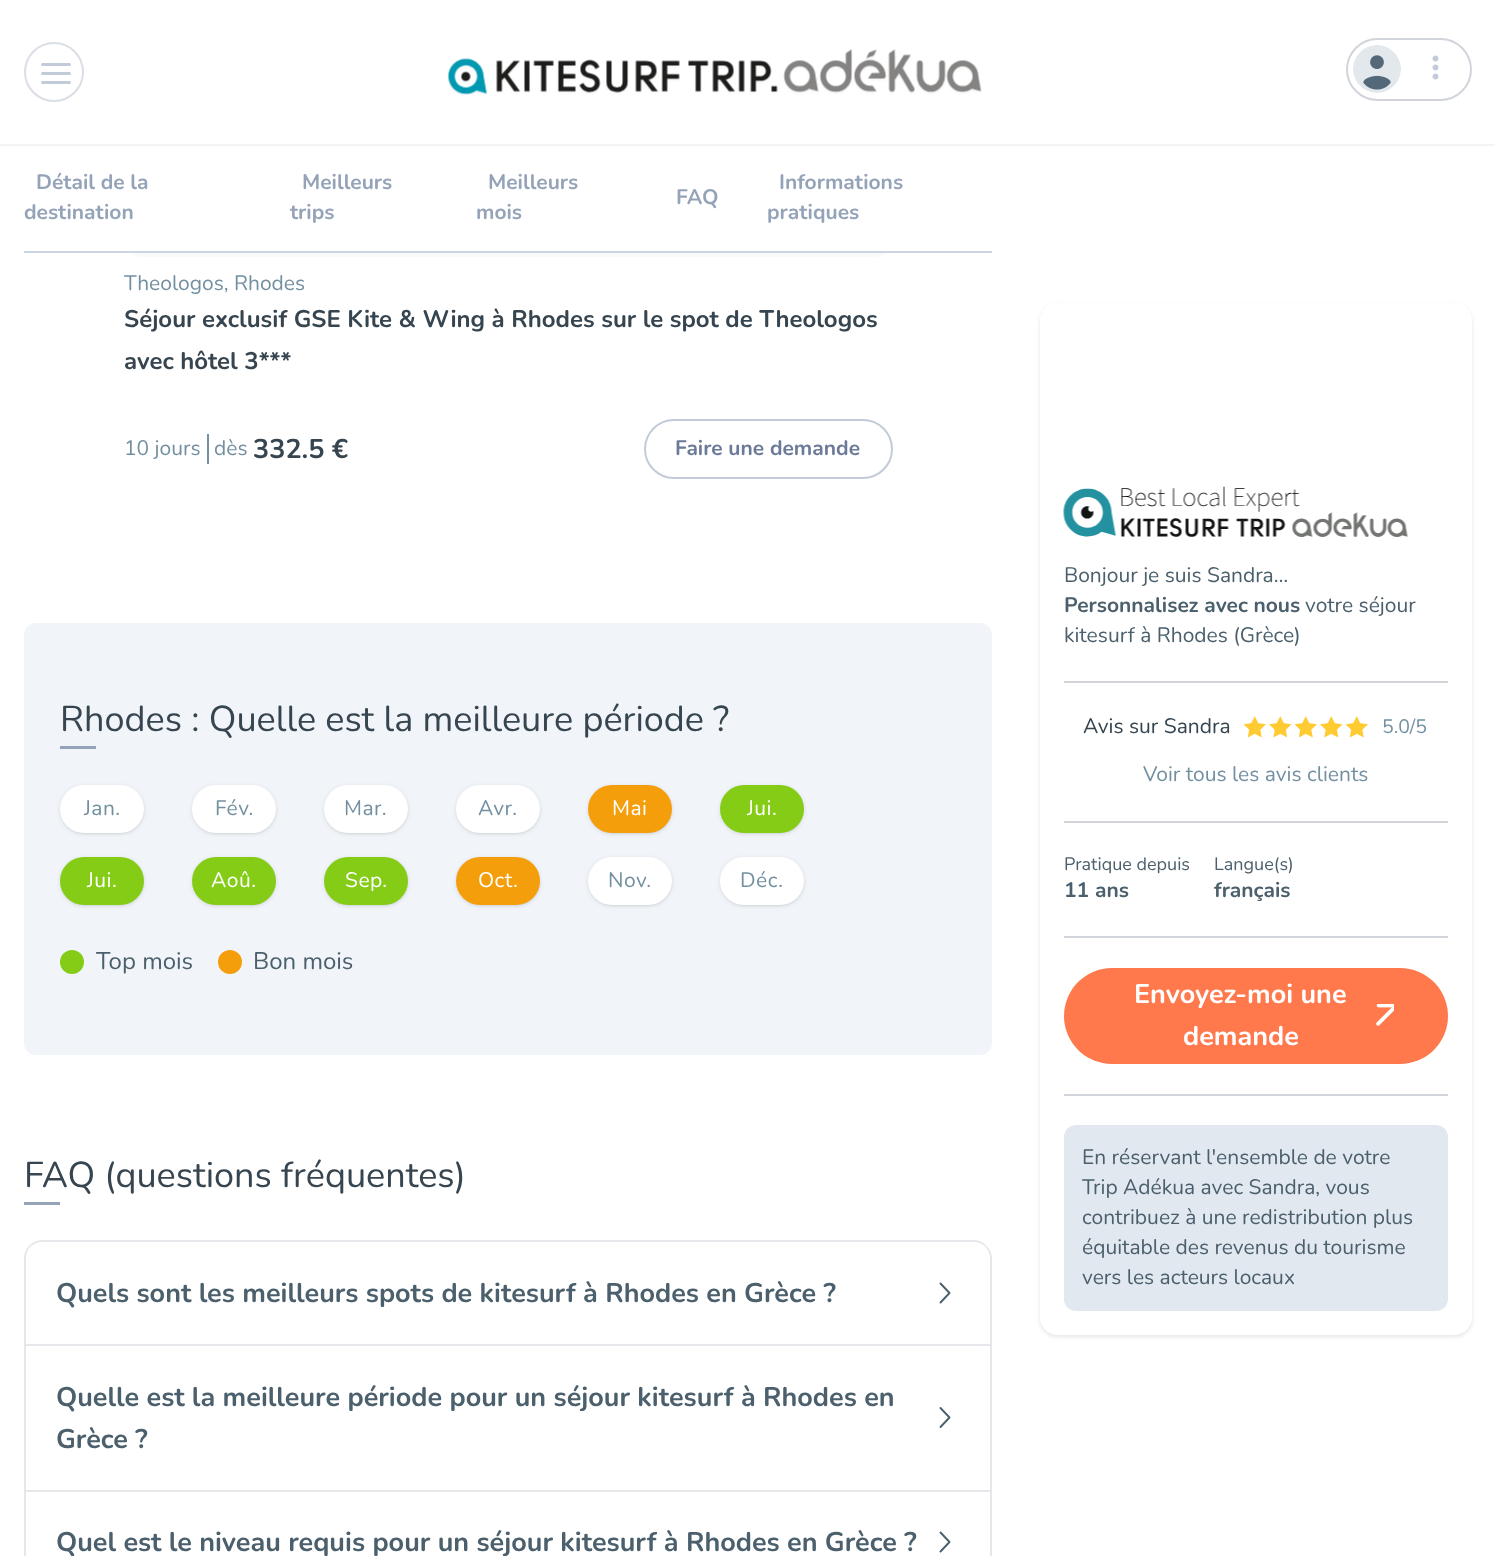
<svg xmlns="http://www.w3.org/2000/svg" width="1495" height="1556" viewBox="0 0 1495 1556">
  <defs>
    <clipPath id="clip1"><rect x="125" y="299" width="768" height="84"/></clipPath>
    <filter id="blur1" x="-50%" y="-200%" width="200%" height="500%"><feGaussianBlur stdDeviation="1.5"/></filter>
    <filter id="blur2" x="-50%" y="-200%" width="200%" height="500%"><feGaussianBlur stdDeviation="2"/></filter>
    <clipPath id="clip2"><path d="M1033 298H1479V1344H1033ZM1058 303H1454C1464 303 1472 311 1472 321V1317C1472 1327 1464 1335 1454 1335H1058C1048 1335 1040 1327 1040 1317V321C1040 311 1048 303 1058 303Z" clip-rule="evenodd"/></clipPath>
  </defs>
  <rect width="100%" height="100%" fill="#ffffff"/>
  <rect x="125" y="-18" width="768" height="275" rx="18" fill="#f8fafc"/>
  <rect x="125" y="0" width="768" height="144" fill="#ffffff"/>
  <rect x="0" y="144" width="1495" height="2" fill="#f3f4f6"/>
  <circle cx="54" cy="72" r="29" fill="none" stroke="#dadee6" stroke-width="2"/>
  <rect x="41" y="63" width="30" height="3" rx="1.5" fill="#c3cad9"/>
  <rect x="41" y="72" width="30" height="3" rx="1.5" fill="#c3cad9"/>
  <rect x="41" y="81" width="30" height="3" rx="1.5" fill="#c3cad9"/>
  <image x="448" y="49" width="534" height="46" href="img1.png"/>
  <rect x="1347" y="39" width="124" height="61" rx="30.5" fill="none" stroke="#d1d5db" stroke-width="2"/>
  <image x="1353" y="45" width="48" height="48" href="img2.png"/>
  <image x="1432" y="55" width="7" height="25" href="img3.png"/>
  <rect x="125" y="146" width="768" height="105" fill="#ffffff"/>
  <rect x="24" y="251" width="968" height="2" fill="#cbd5e1"/>
  <text x="36" y="189" font-family="'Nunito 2'" font-size="21" font-weight="200" fill="#94a3b8">Détail de la</text>
  <text x="24" y="219" font-family="'Nunito 2'" font-size="21" font-weight="200" fill="#94a3b8">destination</text>
  <text x="302" y="189" font-family="'Nunito 2'" font-size="21" font-weight="200" fill="#94a3b8">Meilleurs</text>
  <text x="290" y="219" font-family="'Nunito 2'" font-size="21" font-weight="200" fill="#94a3b8">trips</text>
  <text x="488" y="189" font-family="'Nunito 2'" font-size="21" font-weight="200" fill="#94a3b8">Meilleurs</text>
  <text x="476" y="219" font-family="'Nunito 2'" font-size="21" font-weight="200" fill="#94a3b8">mois</text>
  <text x="676" y="204" font-family="'Nunito 2'" font-size="21" font-weight="200" fill="#94a3b8">FAQ</text>
  <text x="779" y="189" font-family="'Nunito 2'" font-size="21" font-weight="200" fill="#94a3b8">Informations</text>
  <text x="767" y="219" font-family="'Nunito 2'" font-size="21" font-weight="200" fill="#94a3b8">pratiques</text>
  <text x="124" y="290" font-family="Nunito" font-size="21" font-weight="200" fill="#7390a1">Theologos, Rhodes</text>
  <text x="124" y="327" font-family="'Nunito 2'" font-size="24" font-weight="200" fill="#36454f">Séjour exclusif GSE Kite &amp; Wing à Rhodes sur le spot de Theologos</text>
  <g clip-path="url(#clip1)">
    <text x="124" y="369" font-family="'Nunito 2'" font-size="24" font-weight="200" fill="#36454f">avec hôtel 3***</text>
  </g>
  <text x="124" y="455" font-family="Nunito" font-size="21" font-weight="200" fill="#7390a1">10 jours</text>
  <rect x="207" y="434" width="2" height="30" fill="#7390a1"/>
  <text x="214" y="455" font-family="Nunito" font-size="21" font-weight="200" fill="#7390a1">dès</text>
  <text x="253" y="458" font-family="'Nunito 2'" font-size="27" font-weight="200" fill="#36454f">332.5 €</text>
  <rect x="645" y="420" width="247" height="58" rx="29" fill="none" stroke="#c3cad9" stroke-width="2"/>
  <text x="675" y="455" font-family="'Nunito 2'" font-size="21" font-weight="200" fill="#6b7a99">Faire une demande</text>
  <rect x="24" y="623" width="968" height="432" rx="12" fill="#f1f5f9"/>
  <text x="60" y="731" font-family="Nunito" font-size="36" font-weight="200" fill="#36454f">Rhodes : Quelle est la meilleure période ?</text>
  <rect x="60" y="746" width="36" height="3" fill="#94a3b8"/>
  <rect x="62" y="788" width="81" height="45" rx="22.5" fill="#000000" fill-opacity="0.1" filter="url(#blur1)"/>
  <rect x="60" y="786" width="84" height="48" rx="24" fill="#000000" fill-opacity="0.1" filter="url(#blur2)"/>
  <rect x="60" y="785" width="84" height="48" rx="24" fill="#ffffff"/>
  <text x="84" y="815" font-family="Nunito" font-size="21" font-weight="200" letter-spacing="0.5" fill="#7390a1">Jan.</text>
  <rect x="194" y="788" width="81" height="45" rx="22.5" fill="#000000" fill-opacity="0.1" filter="url(#blur1)"/>
  <rect x="192" y="786" width="84" height="48" rx="24" fill="#000000" fill-opacity="0.1" filter="url(#blur2)"/>
  <rect x="192" y="785" width="84" height="48" rx="24" fill="#ffffff"/>
  <text x="215" y="815" font-family="Nunito" font-size="21" font-weight="200" letter-spacing="0.5" fill="#7390a1">Fév.</text>
  <rect x="326" y="788" width="81" height="45" rx="22.5" fill="#000000" fill-opacity="0.1" filter="url(#blur1)"/>
  <rect x="324" y="786" width="84" height="48" rx="24" fill="#000000" fill-opacity="0.1" filter="url(#blur2)"/>
  <rect x="324" y="785" width="84" height="48" rx="24" fill="#ffffff"/>
  <text x="344" y="815" font-family="Nunito" font-size="21" font-weight="200" letter-spacing="0.5" fill="#7390a1">Mar.</text>
  <rect x="458" y="788" width="81" height="45" rx="22.5" fill="#000000" fill-opacity="0.1" filter="url(#blur1)"/>
  <rect x="456" y="786" width="84" height="48" rx="24" fill="#000000" fill-opacity="0.1" filter="url(#blur2)"/>
  <rect x="456" y="785" width="84" height="48" rx="24" fill="#ffffff"/>
  <text x="478" y="815" font-family="Nunito" font-size="21" font-weight="200" letter-spacing="0.5" fill="#7390a1">Avr.</text>
  <rect x="590" y="788" width="81" height="45" rx="22.5" fill="#000000" fill-opacity="0.1" filter="url(#blur1)"/>
  <rect x="588" y="786" width="84" height="48" rx="24" fill="#000000" fill-opacity="0.1" filter="url(#blur2)"/>
  <rect x="588" y="785" width="84" height="48" rx="24" fill="#f59e0b"/>
  <text x="612" y="815" font-family="Nunito" font-size="21" font-weight="200" letter-spacing="0.5" fill="#ffffff">Mai</text>
  <rect x="722" y="788" width="81" height="45" rx="22.5" fill="#000000" fill-opacity="0.1" filter="url(#blur1)"/>
  <rect x="720" y="786" width="84" height="48" rx="24" fill="#000000" fill-opacity="0.1" filter="url(#blur2)"/>
  <rect x="720" y="785" width="84" height="48" rx="24" fill="#84cc16"/>
  <text x="747" y="815" font-family="Nunito" font-size="21" font-weight="200" letter-spacing="0.5" fill="#ffffff">Jui.</text>
  <rect x="62" y="860" width="81" height="45" rx="22.5" fill="#000000" fill-opacity="0.1" filter="url(#blur1)"/>
  <rect x="60" y="858" width="84" height="48" rx="24" fill="#000000" fill-opacity="0.1" filter="url(#blur2)"/>
  <rect x="60" y="857" width="84" height="48" rx="24" fill="#84cc16"/>
  <text x="87" y="887" font-family="Nunito" font-size="21" font-weight="200" letter-spacing="0.5" fill="#ffffff">Jui.</text>
  <rect x="194" y="860" width="81" height="45" rx="22.5" fill="#000000" fill-opacity="0.1" filter="url(#blur1)"/>
  <rect x="192" y="858" width="84" height="48" rx="24" fill="#000000" fill-opacity="0.1" filter="url(#blur2)"/>
  <rect x="192" y="857" width="84" height="48" rx="24" fill="#84cc16"/>
  <text x="211" y="887" font-family="Nunito" font-size="21" font-weight="200" letter-spacing="0.5" fill="#ffffff">Aoû.</text>
  <rect x="326" y="860" width="81" height="45" rx="22.5" fill="#000000" fill-opacity="0.1" filter="url(#blur1)"/>
  <rect x="324" y="858" width="84" height="48" rx="24" fill="#000000" fill-opacity="0.1" filter="url(#blur2)"/>
  <rect x="324" y="857" width="84" height="48" rx="24" fill="#84cc16"/>
  <text x="345" y="887" font-family="Nunito" font-size="21" font-weight="200" letter-spacing="0.5" fill="#ffffff">Sep.</text>
  <rect x="458" y="860" width="81" height="45" rx="22.5" fill="#000000" fill-opacity="0.1" filter="url(#blur1)"/>
  <rect x="456" y="858" width="84" height="48" rx="24" fill="#000000" fill-opacity="0.1" filter="url(#blur2)"/>
  <rect x="456" y="857" width="84" height="48" rx="24" fill="#f59e0b"/>
  <text x="478" y="887" font-family="Nunito" font-size="21" font-weight="200" letter-spacing="0.5" fill="#ffffff">Oct.</text>
  <rect x="590" y="860" width="81" height="45" rx="22.5" fill="#000000" fill-opacity="0.1" filter="url(#blur1)"/>
  <rect x="588" y="858" width="84" height="48" rx="24" fill="#000000" fill-opacity="0.1" filter="url(#blur2)"/>
  <rect x="588" y="857" width="84" height="48" rx="24" fill="#ffffff"/>
  <text x="608" y="887" font-family="Nunito" font-size="21" font-weight="200" letter-spacing="0.5" fill="#7390a1">Nov.</text>
  <rect x="722" y="860" width="81" height="45" rx="22.5" fill="#000000" fill-opacity="0.1" filter="url(#blur1)"/>
  <rect x="720" y="858" width="84" height="48" rx="24" fill="#000000" fill-opacity="0.1" filter="url(#blur2)"/>
  <rect x="720" y="857" width="84" height="48" rx="24" fill="#ffffff"/>
  <text x="740" y="887" font-family="Nunito" font-size="21" font-weight="200" letter-spacing="0.5" fill="#7390a1">Déc.</text>
  <circle cx="72" cy="962" r="12" fill="#84cc16"/>
  <text x="96" y="969" font-family="Nunito" font-size="24" font-weight="200" fill="#4b606c">Top mois</text>
  <circle cx="230" cy="962" r="12" fill="#f59e0b"/>
  <text x="253" y="969" font-family="Nunito" font-size="24" font-weight="200" fill="#4b606c">Bon mois</text>
  <text x="24" y="1187" font-family="Nunito" font-size="36" font-weight="200" fill="#36454f">FAQ (questions fréquentes)</text>
  <rect x="24" y="1202" width="36" height="3" fill="#94a3b8"/>
  <path d="M42 1240H974C983 1240 992 1249 992 1258V1344H24V1258C24 1249 32 1240 42 1240ZM42 1242H974C983 1242 990 1249 990 1258V1344H26V1258C26 1249 33 1242 42 1242Z" fill="#e5e7eb" fill-rule="evenodd"/>
  <text x="56" y="1302" font-family="'Nunito 2'" font-size="27" font-weight="200" fill="#4b606c">Quels sont les meilleurs spots de kitesurf à Rhodes en Grèce ?</text>
  <path d="M940.5 1283.5L949.5 1293L940.5 1302.5" fill="none" stroke="#4b606c" stroke-width="1.9" stroke-linecap="round" stroke-linejoin="round"/>
  <rect x="24" y="1344" width="968" height="2" fill="#e5e7eb"/>
  <rect x="990" y="1344" width="2" height="146" fill="#e5e7eb"/>
  <rect x="24" y="1344" width="2" height="146" fill="#e5e7eb"/>
  <text x="56" y="1406" font-family="'Nunito 2'" font-size="27" font-weight="200" fill="#4b606c">Quelle est la meilleure période pour un séjour kitesurf à Rhodes en</text>
  <text x="56" y="1448" font-family="'Nunito 2'" font-size="27" font-weight="200" fill="#4b606c">Grèce ?</text>
  <path d="M940.5 1408L949.5 1417.5L940.5 1427" fill="none" stroke="#4b606c" stroke-width="1.9" stroke-linecap="round" stroke-linejoin="round"/>
  <rect x="24" y="1490" width="968" height="2" fill="#e5e7eb"/>
  <rect x="990" y="1490" width="2" height="66" fill="#e5e7eb"/>
  <rect x="24" y="1490" width="2" height="66" fill="#e5e7eb"/>
  <text x="56" y="1551" font-family="'Nunito 2'" font-size="27" font-weight="200" fill="#4b606c">Quel est le niveau requis pour un séjour kitesurf à Rhodes en Grèce ?</text>
  <path d="M940.5 1532.5L949.5 1542L940.5 1551.5" fill="none" stroke="#4b606c" stroke-width="1.9" stroke-linecap="round" stroke-linejoin="round"/>
  <g clip-path="url(#clip2)">
    <rect x="1040" y="305" width="432" height="1032" rx="18" fill="#000000" fill-opacity="0.1" filter="url(#blur2)"/>
  </g>
  <image x="1063" y="486" width="345" height="51" href="img4.png"/>
  <text x="1064" y="582" font-family="Nunito" font-size="21" font-weight="200" fill="#4b606c">Bonjour je suis Sandra…</text>
  <text x="1064" y="612" font-family="'Nunito 2'" font-size="21" font-weight="200" fill="#4b606c">Personnalisez avec nous</text>
  <text x="1305" y="612" font-family="Nunito" font-size="21" font-weight="200" fill="#4b606c">votre séjour</text>
  <text x="1064" y="642" font-family="Nunito" font-size="21" font-weight="200" fill="#4b606c">kitesurf à Rhodes (Grèce)</text>
  <rect x="1064" y="681" width="384" height="2" fill="#d1d5db"/>
  <text x="1083" y="733" font-family="Nunito" font-size="21" font-weight="200" fill="#36454f">Avis sur Sandra</text>
  <image x="1244" y="716" width="124" height="22" href="img5.png"/>
  <text x="1382" y="733" font-family="Nunito" font-size="19.5" font-weight="200" fill="#7390a1">5.0/5</text>
  <text x="1143" y="781" font-family="Nunito" font-size="21" font-weight="200" fill="#7390a1">Voir tous les avis clients</text>
  <rect x="1064" y="821" width="384" height="2" fill="#d1d5db"/>
  <text x="1064" y="870" font-family="Nunito" font-size="18" font-weight="200" fill="#4b606c">Pratique depuis</text>
  <text x="1064" y="897" font-family="'Nunito 2'" font-size="21" font-weight="200" fill="#4b606c">11 ans</text>
  <text x="1214" y="870" font-family="Nunito" font-size="18" font-weight="200" fill="#4b606c">Langue(s)</text>
  <text x="1214" y="897" font-family="'Nunito 2'" font-size="21" font-weight="200" fill="#4b606c">français</text>
  <rect x="1064" y="936" width="384" height="2" fill="#d1d5db"/>
  <rect x="1064" y="968" width="384" height="96" rx="48" fill="#ff794d"/>
  <text x="1134" y="1003" font-family="'Nunito 2'" font-size="27" font-weight="200" fill="#ffffff">Envoyez-moi une</text>
  <text x="1183" y="1045" font-family="'Nunito 2'" font-size="27" font-weight="200" fill="#ffffff">demande</text>
  <image x="1376" y="1004" width="18" height="22" href="img6.png"/>
  <rect x="1064" y="1094" width="384" height="2" fill="#d1d5db"/>
  <rect x="1064" y="1125" width="384" height="186" rx="12" fill="#e2e8f0"/>
  <text x="1082" y="1164" font-family="Nunito" font-size="21" font-weight="200" fill="#4b606c">En réservant l'ensemble de votre</text>
  <text x="1082" y="1194" font-family="Nunito" font-size="21" font-weight="200" fill="#4b606c">Trip Adékua avec Sandra, vous</text>
  <text x="1082" y="1224" font-family="Nunito" font-size="21" font-weight="200" fill="#4b606c">contribuez à une redistribution plus</text>
  <text x="1082" y="1254" font-family="Nunito" font-size="21" font-weight="200" fill="#4b606c">équitable des revenus du tourisme</text>
  <text x="1082" y="1284" font-family="Nunito" font-size="21" font-weight="200" fill="#4b606c">vers les acteurs locaux</text>
</svg>
